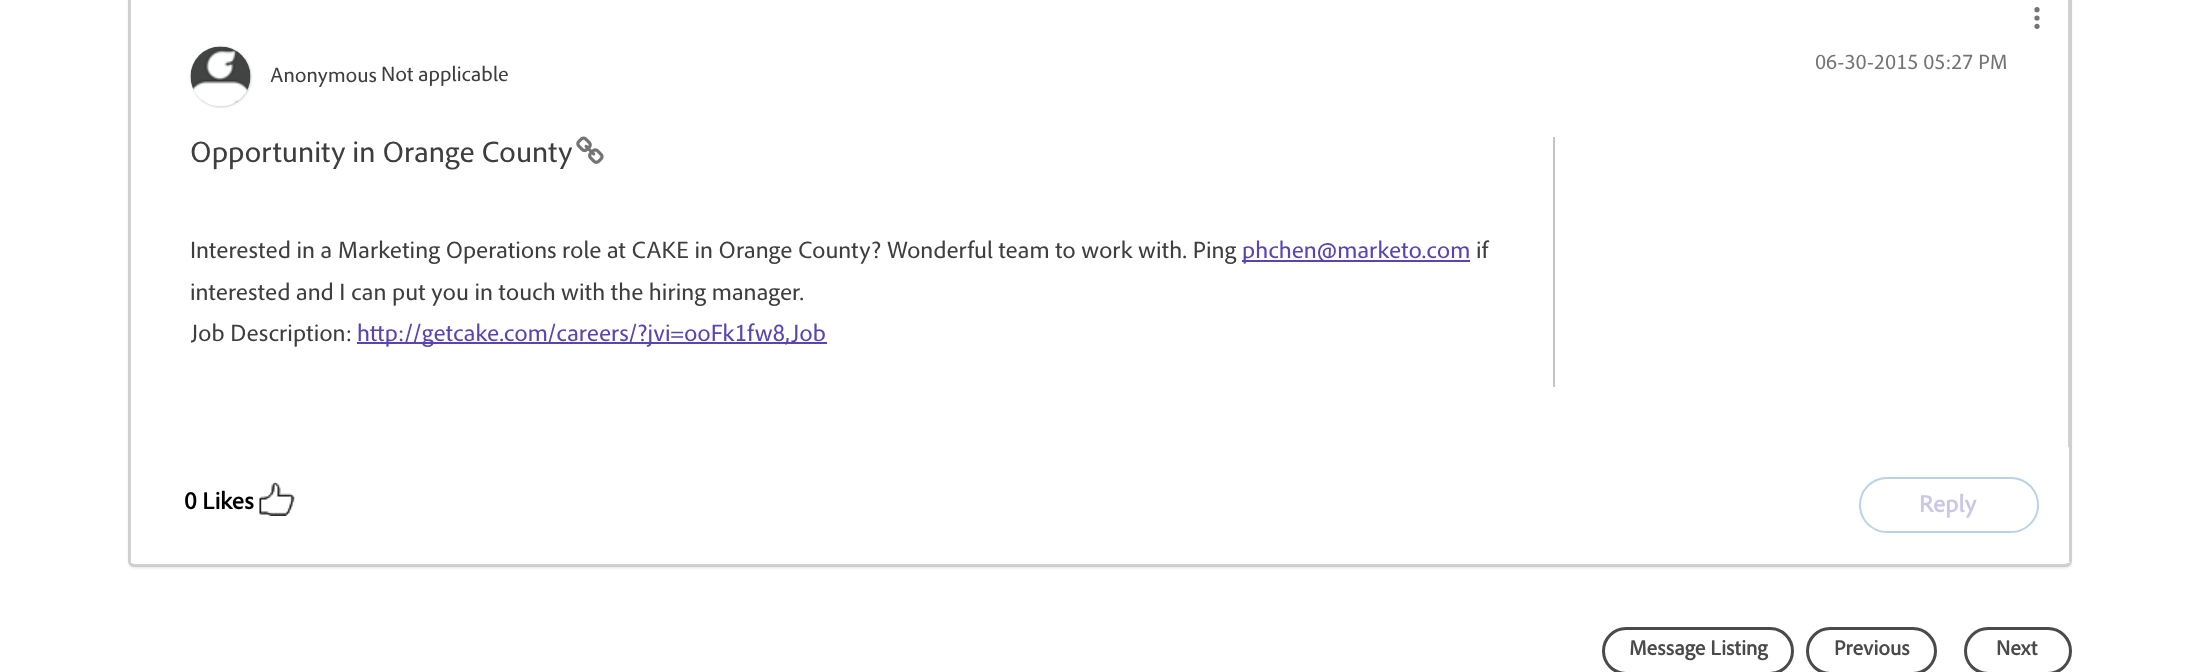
<svg xmlns="http://www.w3.org/2000/svg" width="2197" height="672" viewBox="0 0 2197 672">
  <defs>
    <filter id="blur1" x="-50%" y="-200%" width="200%" height="500%"><feGaussianBlur stdDeviation="1"/></filter>
    <clipPath id="clip1"><rect x="191" y="233" width="1302" height="139"/></clipPath>
  </defs>
  <rect width="100%" height="100%" fill="#ffffff"/>
  <rect x="128" y="-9" width="1944" height="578" rx="6" fill="#000000" fill-opacity="0.05" filter="url(#blur1)"/>
  <rect x="129" y="-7" width="1942" height="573" rx="5" fill="none" stroke="#d1d1d1" stroke-width="2"/>
  <rect x="129" y="-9" width="1941" height="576" rx="6" fill="#000000" fill-opacity="0.05" filter="url(#blur1)"/>
  <rect x="130" y="-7" width="1939" height="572" rx="5" fill="#ffffff" stroke="#d1d1d1" stroke-width="2"/>
  <circle cx="2037" cy="9.7" r="2.6" fill="#747474"/>
  <circle cx="2037" cy="18" r="2.6" fill="#747474"/>
  <circle cx="2037" cy="26.3" r="2.6" fill="#747474"/>
  <text x="1815" y="69" font-family="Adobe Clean" font-size="21" fill="#747474">06-30-2015 05:27 PM</text>
  <rect x="191" y="47" width="60" height="60" rx="30" fill="#c4c4c4" filter="url(#blur1)"/>
  <image x="190" y="46" width="61" height="61" href="img1.png"/>
  <text x="270" y="82" font-family="Adobe Clean" font-size="21" fill="#3e3e3e">Anonymous</text>
  <text x="381" y="81" font-family="Adobe Clean" font-size="21" fill="#3e3e3e">Not applicable</text>
  <rect x="1553" y="137" width="2" height="250" fill="#c4c4c4"/>
  <text x="190" y="162" font-family="Adobe Clean" font-size="30" fill="#3e3e3e">Opportunity in Orange County</text>
  <image x="576" y="136" width="28" height="28" href="img2.png"/>
  <text x="190" y="258" font-family="Adobe Clean" font-size="24" fill="#3e3e3e">Interested in a Marketing Operations role at CAKE in Orange County? Wonderful team to work with. Ping</text>
  <rect x="1242" y="260" width="228" height="2" fill="#5944b0"/>
  <text x="1242" y="258" font-family="Adobe Clean" font-size="24" fill="#5944b0">phchen@marketo.com</text>
  <text x="1476" y="258" font-family="Adobe Clean" font-size="24" fill="#3e3e3e">if</text>
  <text x="190" y="300" font-family="Adobe Clean" font-size="24" fill="#3e3e3e">interested and I can put you in touch with the hiring manager.</text>
  <g clip-path="url(#clip1)">
    <text x="190" y="341" font-family="Adobe Clean" font-size="24" fill="#3e3e3e">Job Description:</text>
  </g>
  <rect x="357" y="342" width="470" height="2" fill="#5944b0"/>
  <text x="357" y="341" font-family="Adobe Clean" font-size="24" fill="#5944b0">http://getcake.com/careers/?jvi=ooFk1fw8,Job</text>
  <rect x="131" y="447" width="1938" height="116" fill="#ffffff"/>
  <text x="184" y="509" font-family="Adobe Clean" font-size="24" font-weight="bold" fill="#000000">0 Likes</text>
  <image x="259" y="482" width="36" height="34" href="img3.png"/>
  <rect x="1860" y="478" width="178" height="54" rx="27" fill="none" stroke="#b9d3e6" stroke-width="2"/>
  <text x="1919" y="512" font-family="Adobe Clean" font-size="24" font-weight="bold" fill="#cdc7e7">Reply</text>
  <rect x="1603.5" y="628.5" width="189" height="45" rx="22.5" fill="none" stroke="#4a4a4a" stroke-width="3"/>
  <text x="1629" y="655" font-family="Adobe Clean" font-size="21" font-weight="bold" fill="#4a4a4a">Message Listing</text>
  <rect x="1807.5" y="628.5" width="128" height="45" rx="22.5" fill="none" stroke="#4a4a4a" stroke-width="3"/>
  <text x="1834" y="655" font-family="Adobe Clean" font-size="21" font-weight="bold" fill="#4a4a4a">Previous</text>
  <rect x="1965.5" y="628.5" width="105" height="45" rx="22.5" fill="none" stroke="#4a4a4a" stroke-width="3"/>
  <text x="1996" y="655" font-family="Adobe Clean" font-size="21" font-weight="bold" fill="#4a4a4a">Next</text>
</svg>
